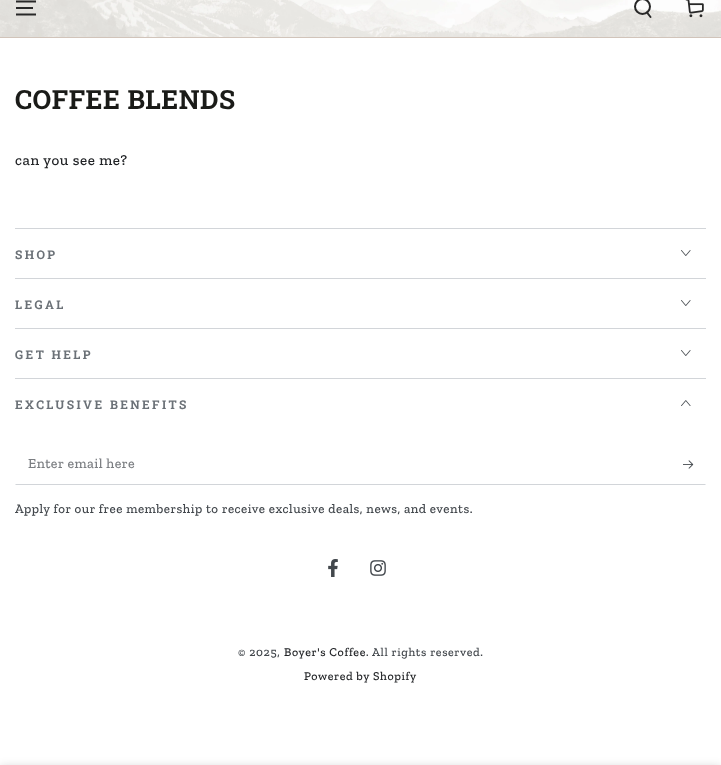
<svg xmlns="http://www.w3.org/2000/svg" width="721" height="765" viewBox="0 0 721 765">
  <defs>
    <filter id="blur1" x="-50%" y="-200%" width="200%" height="500%"><feGaussianBlur stdDeviation="4"/></filter>
  </defs>
  <rect width="100%" height="100%" fill="#ffffff"/>
  <rect x="0" y="37" width="721" height="1" fill="#d1c4ba"/>
  <image x="0" y="0" width="721" height="37" href="img1.png"/>
  <path d="M16 14.5H36M16 8H33M16 1.5H36" fill="none" stroke="#282828" stroke-width="1.9"/>
  <circle cx="642.5" cy="6.5" r="7.5" fill="none" stroke="#282828" stroke-width="2"/>
  <path d="M647 12.5L650.5 17" fill="none" stroke="#282828" stroke-width="2" stroke-linecap="round"/>
  <image x="685" y="0" width="19" height="18" href="img2.png"/>
  <text x="15" y="109" font-family="Roboto Slab" font-size="26.5" font-weight="bold" letter-spacing="0.5" fill="#1a1b18">COFFEE BLENDS</text>
  <text x="15" y="165" font-family="Zilla Slab" font-size="15" font-weight="500" letter-spacing="0.6" fill="#212326">can you see me?</text>
  <rect x="15" y="228" width="691" height="1" fill="#d2d5d9"/>
  <rect x="15" y="278" width="691" height="1" fill="#d2d5d9"/>
  <text x="15" y="259" font-family="Roboto Slab" font-size="12" font-weight="bold" letter-spacing="2.4" fill="#6b7177">SHOP</text>
  <image x="681" y="250" width="10" height="6" href="img3.png"/>
  <rect x="15" y="328" width="691" height="1" fill="#d2d5d9"/>
  <text x="15" y="309" font-family="Roboto Slab" font-size="12" font-weight="bold" letter-spacing="2.4" fill="#6b7177">LEGAL</text>
  <image x="681" y="300" width="10" height="6" href="img3.png"/>
  <rect x="15" y="378" width="691" height="1" fill="#d2d5d9"/>
  <text x="15" y="359" font-family="Roboto Slab" font-size="12" font-weight="bold" letter-spacing="2.4" fill="#6b7177">GET HELP</text>
  <image x="681" y="350" width="10" height="6" href="img3.png"/>
  <text x="15" y="409" font-family="Roboto Slab" font-size="12" font-weight="bold" letter-spacing="2.4" fill="#6b7177">EXCLUSIVE BENEFITS</text>
  <image x="681" y="400" width="10" height="6" href="img4.png"/>
  <path d="M706 485H15L16 484H705Z" fill="#d2d5d9"/>
  <text x="28" y="468" font-family="Zilla Slab" font-size="14" font-weight="500" letter-spacing="0.4" fill="#7b7e82">Enter email here</text>
  <image x="683" y="460" width="11" height="9" href="img5.png"/>
  <text x="15" y="513" font-family="Zilla Slab" font-size="13" font-weight="500" letter-spacing="0.5" fill="#42474c">Apply for our free membership to receive exclusive deals, news, and events.</text>
  <image x="328" y="559" width="10" height="18" href="img6.png"/>
  <image x="370" y="560" width="16" height="16" href="img7.png"/>
  <text x="238" y="656" font-family="Zilla Slab" font-size="12" font-weight="500" letter-spacing="0.6" fill="#42474c">© 2025,</text>
  <text x="284" y="656" font-family="Zilla Slab" font-size="12" font-weight="500" letter-spacing="0.6" fill="#212326">Boyer's Coffee</text>
  <text x="366" y="656" font-family="Zilla Slab" font-size="12" font-weight="500" letter-spacing="0.6" fill="#42474c">. All rights reserved.</text>
  <text x="304" y="680" font-family="Zilla Slab" font-size="12" font-weight="500" letter-spacing="0.6" fill="#212326">Powered by Shopify</text>
  <rect x="0" y="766" width="721" height="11" fill="#212326" fill-opacity="0.15" filter="url(#blur1)"/>
</svg>
